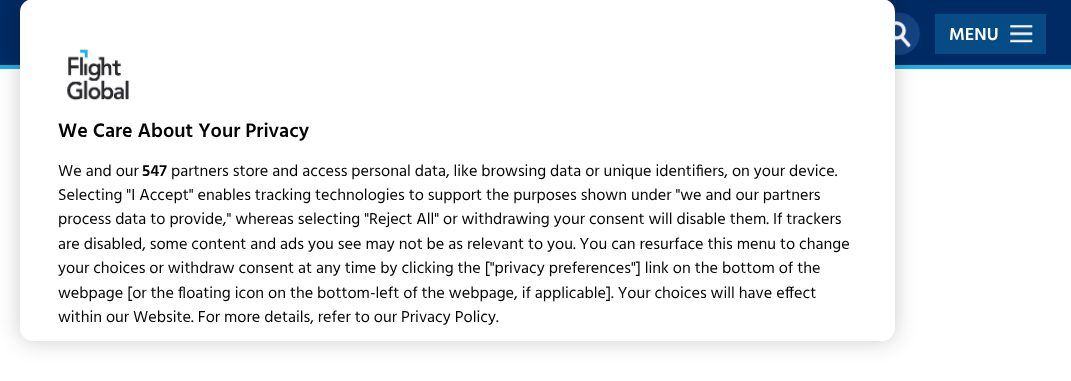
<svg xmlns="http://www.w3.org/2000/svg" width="1071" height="381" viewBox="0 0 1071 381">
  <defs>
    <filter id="blur1" x="-50%" y="-200%" width="200%" height="500%"><feGaussianBlur stdDeviation="11"/></filter>
  </defs>
  <rect width="100%" height="100%" fill="#ffffff"/>
  <rect x="0" y="0" width="1071" height="65" fill="#002a63"/>
  <rect x="0" y="65" width="1071" height="4" fill="#1cafe5"/>
  <image x="895" y="12" width="26" height="44" href="img1.png"/>
  <rect x="935" y="14" width="111" height="40" fill="#074b84"/>
  <text x="949" y="40" font-family="Hind" font-size="18" font-weight="600" fill="#ffffff">MENU</text>
  <image x="1010" y="25" width="23" height="18" href="img2.png"/>
  <rect x="20" y="-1" width="875" height="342" rx="13" fill="#000000" fill-opacity="0.2" filter="url(#blur1)"/>
  <rect x="20" y="-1" width="875" height="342" rx="13" fill="#ffffff"/>
  <image x="67" y="49" width="62" height="52" href="img3.png"/>
  <text x="58" y="137" font-family="Hind" font-size="20" font-weight="600" fill="#020202">We Care About Your Privacy</text>
  <text x="58" y="176" font-family="Hind" font-size="16.25" fill="#020202">We and our</text>
  <text x="142" y="176" font-family="Hind" font-size="16.25" font-weight="600" fill="#020202">547</text>
  <text x="171" y="176" font-family="Hind" font-size="16.25" fill="#020202">partners store and access personal data, like browsing data or unique identifiers, on your device.</text>
  <text x="58" y="200" font-family="Hind" font-size="16.25" fill="#020202">Selecting "I Accept" enables tracking technologies to support the purposes shown under "we and our partners</text>
  <text x="58" y="224" font-family="Hind" font-size="16.25" fill="#020202">process data to provide," whereas selecting "Reject All" or withdrawing your consent will disable them. If trackers</text>
  <text x="58" y="249" font-family="Hind" font-size="16.25" fill="#020202">are disabled, some content and ads you see may not be as relevant to you. You can resurface this menu to change</text>
  <text x="58" y="273" font-family="Hind" font-size="16.25" fill="#020202">your choices or withdraw consent at any time by clicking the ["privacy preferences"] link on the bottom of the</text>
  <text x="58" y="298" font-family="Hind" font-size="16.25" fill="#020202">webpage [or the floating icon on the bottom-left of the webpage, if applicable]. Your choices will have effect</text>
  <text x="58" y="322" font-family="Hind" font-size="16.25" fill="#020202">within our Website. For more details, refer to our Privacy Policy.</text>
</svg>
